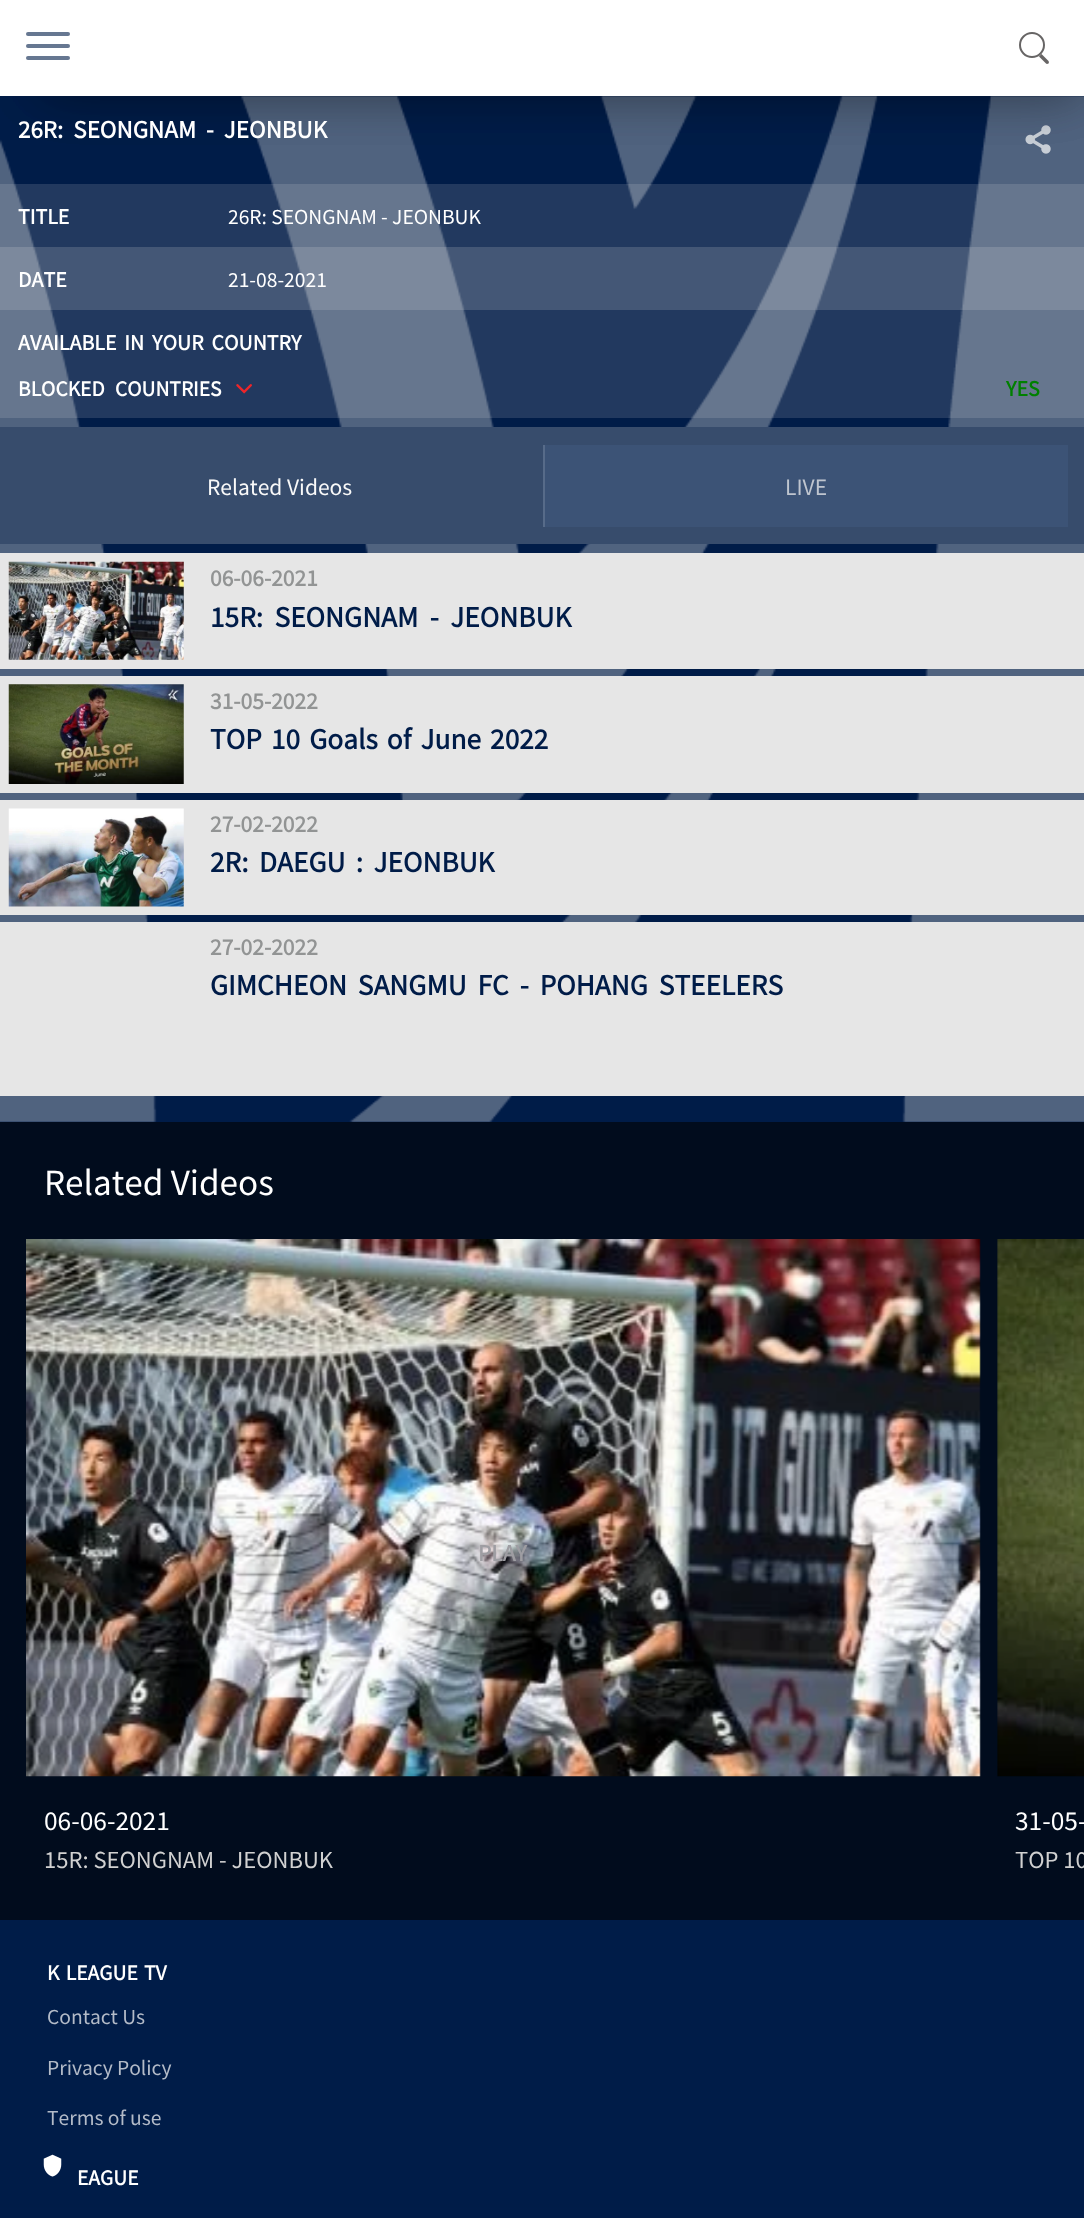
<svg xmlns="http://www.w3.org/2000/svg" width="1084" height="2218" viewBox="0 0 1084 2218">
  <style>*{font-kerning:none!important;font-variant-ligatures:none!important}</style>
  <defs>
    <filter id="blur1" x="-50%" y="-200%" width="200%" height="500%"><feGaussianBlur stdDeviation="28"/></filter>
  </defs>
  <rect width="100%" height="100%" fill="#001c48"/>
  <image x="0" y="96" width="1084" height="1026" href="img1.png"/>
  <image x="1025" y="125" width="26" height="29" href="img2.png"/>
  <rect x="39" y="39" width="1043" height="54" fill="#000000" fill-opacity="0.26" filter="url(#blur1)"/>
  <rect x="39" y="39" width="1043" height="54" fill="#000000" fill-opacity="0.26" filter="url(#blur1)"/>
  <rect x="0" y="0" width="1084" height="96" fill="#ffffff"/>
  <rect x="26" y="32" width="44" height="4" rx="2" fill="#667791"/>
  <rect x="26" y="44" width="44" height="4" rx="2" fill="#667791"/>
  <rect x="26" y="56" width="44" height="4" rx="2" fill="#667791"/>
  <circle cx="1032" cy="45" r="12" fill="none" stroke="#676565" stroke-width="2"/>
  <path d="M1041.5 54L1048.5 61C1049 62 1049 63 1048.5 63.5C1047.5 64 1046.5 64 1046 63.5L1039 56.5Z" fill="#676565"/>
  <text x="18" y="138" word-spacing="5" font-family="Noto Sans KR" font-size="22.4" font-weight="bold" fill="#ffffff">26R: SEONGNAM - JEONBUK</text>
  <rect x="0" y="184" width="1084" height="234" fill="#e6e6e6" fill-opacity="0.15"/>
  <text x="18" y="224" font-family="Noto Sans KR" font-size="19.6" font-weight="bold" fill="#ffffff">TITLE</text>
  <text x="228" y="224" font-family="Noto Sans KR" font-size="19.25" fill="#ffffff">26R: SEONGNAM - JEONBUK</text>
  <rect x="0" y="247" width="1084" height="63" fill="#e6e6e6" fill-opacity="0.18"/>
  <text x="18" y="287" font-family="Noto Sans KR" font-size="19.6" font-weight="bold" fill="#ffffff">DATE</text>
  <text x="228" y="287" font-family="Noto Sans KR" font-size="19.25" fill="#ffffff">21-08-2021</text>
  <text x="18" y="350" word-spacing="3.5" font-family="Noto Sans KR" font-size="19.6" font-weight="bold" fill="#ffffff">AVAILABLE IN YOUR COUNTRY</text>
  <text x="18" y="396" word-spacing="6" font-family="Noto Sans KR" font-size="19.25" font-weight="bold" fill="#ffffff">BLOCKED COUNTRIES</text>
  <image x="236" y="384" width="16" height="10" href="img3.png"/>
  <text x="1006" y="396" font-family="Noto Sans KR" font-size="19.6" font-weight="bold" fill="#008000">YES</text>
  <rect x="0" y="427" width="1084" height="117" fill="#374c6c"/>
  <text x="207" y="495" font-family="Noto Sans KR" font-size="21" fill="#f9f9f9">Related Videos</text>
  <rect x="545" y="445" width="523" height="82" fill="#3c5376"/>
  <rect x="543" y="445" width="2" height="82" fill="#576b89"/>
  <text x="785" y="495" font-family="Noto Sans KR" font-size="21" fill="#bfc5cf">LIVE</text>
  <rect x="0" y="553" width="1084" height="116" fill="#e6e6e6"/>
  <image x="8" y="561" width="176" height="99" href="img4.png"/>
  <text x="210" y="586" font-family="Noto Sans KR" font-size="21" font-weight="bold" fill="#929494">06-06-2021</text>
  <text x="210" y="627" word-spacing="5.5" font-family="Noto Sans KR" font-size="26.25" font-weight="bold" fill="#001c48">15R: SEONGNAM - JEONBUK</text>
  <rect x="0" y="676" width="1084" height="117" fill="#e6e6e6"/>
  <image x="8" y="684" width="176" height="100" href="img5.png"/>
  <text x="210" y="709" font-family="Noto Sans KR" font-size="21" font-weight="bold" fill="#929494">31-05-2022</text>
  <text x="210" y="749" word-spacing="3.25" font-family="Noto Sans KR" font-size="26.25" font-weight="bold" fill="#001c48">TOP 10 Goals of June 2022</text>
  <rect x="0" y="800" width="1084" height="115" fill="#e6e6e6"/>
  <image x="8" y="808" width="176" height="99" href="img6.png"/>
  <text x="210" y="832" font-family="Noto Sans KR" font-size="21" font-weight="bold" fill="#929494">27-02-2022</text>
  <text x="210" y="872" word-spacing="4.5" font-family="Noto Sans KR" font-size="26.25" font-weight="bold" fill="#001c48">2R: DAEGU : JEONBUK</text>
  <rect x="0" y="922" width="1084" height="174" fill="#e6e6e6"/>
  <text x="210" y="955" font-family="Noto Sans KR" font-size="21" font-weight="bold" fill="#929494">27-02-2022</text>
  <text x="210" y="995" word-spacing="5" font-family="Noto Sans KR" font-size="26.25" font-weight="bold" fill="#001c48">GIMCHEON SANGMU FC - POHANG STEELERS</text>
  <rect x="0" y="1122" width="1084" height="798" fill="#010c1d"/>
  <text x="44" y="1195" font-family="Noto Sans KR" font-size="33.25" fill="#ffffff">Related Videos</text>
  <image x="26" y="1239" width="955" height="538" href="img7.png"/>
  <text x="478" y="1561" font-family="Noto Sans KR" font-size="21" font-weight="bold" fill="#9e9da2">PLAY</text>
  <text x="44" y="1830" font-family="Noto Sans KR" font-size="24.5" fill="#ffffff">06-06-2021</text>
  <text x="44" y="1868" font-family="Noto Sans KR" font-size="22" fill="#d1d1d1">15R: SEONGNAM - JEONBUK</text>
  <image x="997" y="1239" width="87" height="538" href="img8.png"/>
  <text x="1015" y="1830" font-family="Noto Sans KR" font-size="24.5" fill="#ffffff">31-05-</text>
  <text x="1015" y="1868" font-family="Noto Sans KR" font-size="22" fill="#d1d1d1">TOP 10</text>
  <text x="47" y="1980" word-spacing="2" font-family="Noto Sans KR" font-size="19.25" font-weight="bold" fill="#ffffff">K LEAGUE TV</text>
  <text x="47" y="2024" font-family="Noto Sans KR" font-size="19.25" fill="#b3bbc8">Contact Us</text>
  <text x="47" y="2075" font-family="Noto Sans KR" font-size="19.25" fill="#b3bbc8">Privacy Policy</text>
  <text x="47" y="2125" font-family="Noto Sans KR" font-size="19.25" fill="#b3bbc8">Terms of use</text>
  <text x="77" y="2185" word-spacing="3" font-family="Noto Sans KR" font-size="19.25" font-weight="bold" fill="#ffffff">EAGUE</text>
  <image x="43" y="2154" width="19" height="23" href="img9.png"/>
</svg>
